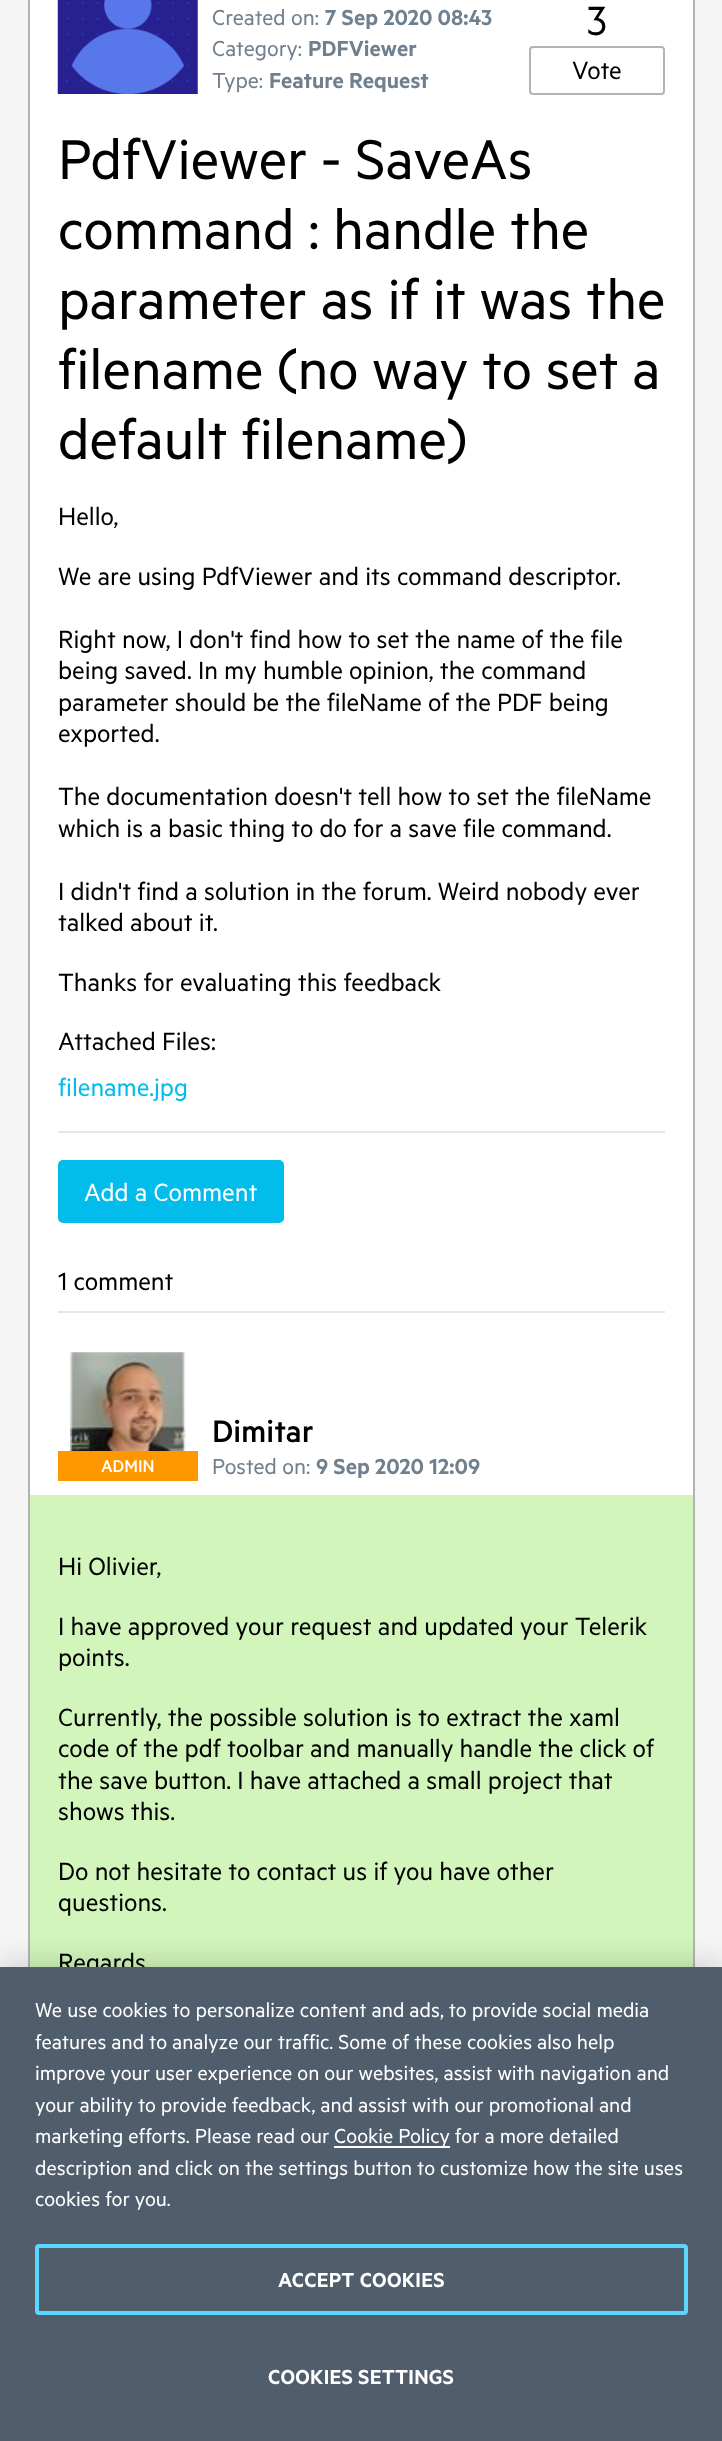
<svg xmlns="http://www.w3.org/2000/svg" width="722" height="2441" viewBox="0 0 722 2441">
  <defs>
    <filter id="blur1" x="-50%" y="-200%" width="200%" height="500%"><feGaussianBlur stdDeviation="16"/></filter>
  </defs>
  <rect width="100%" height="100%" fill="#f5f5f5"/>
  <rect x="30" y="0" width="663" height="1495" fill="#ffffff"/>
  <rect x="29" y="-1" width="665" height="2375" fill="none" stroke="#b3b3b3" stroke-width="2"/>
  <image x="57" y="0" width="141" height="94" href="img1.png"/>
  <text x="212" y="25" font-family="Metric" font-size="24.5" fill="#71808f">Created on:</text>
  <text x="325" y="25" font-family="Metric" font-size="24.5" font-weight="600" fill="#71808f">7 Sep 2020 08:43</text>
  <text x="212" y="56" font-family="Metric" font-size="24.5" fill="#71808f">Category:</text>
  <text x="308" y="56" font-family="Metric" font-size="24.5" font-weight="600" fill="#71808f">PDFViewer</text>
  <text x="212" y="88" font-family="Metric" font-size="24.5" fill="#71808f">Type:</text>
  <text x="269" y="88" font-family="Metric" font-size="24.5" font-weight="600" fill="#71808f">Feature Request</text>
  <text x="587" y="35" font-family="Metric" font-size="46" fill="#000000">3</text>
  <rect x="530" y="47" width="134" height="47" rx="3" fill="none" stroke="#b3b3b3" stroke-width="2"/>
  <text x="572" y="79" font-family="Metric" font-size="28" fill="#000000">Vote</text>
  <text x="58" y="179" font-family="Metric" font-size="63" fill="#000000">PdfViewer - SaveAs</text>
  <text x="58" y="249" font-family="Metric" font-size="63" fill="#000000">command : handle the</text>
  <text x="58" y="319" font-family="Metric" font-size="63" fill="#000000">parameter as if it was the</text>
  <text x="58" y="389" font-family="Metric" font-size="63" fill="#000000">filename (no way to set a</text>
  <text x="58" y="459" font-family="Metric" font-size="63" fill="#000000">default filename)</text>
  <rect x="58" y="1131" width="607" height="2" fill="#e6e6e6"/>
  <text x="58" y="525" font-family="Metric" font-size="28" fill="#000000">Hello,</text>
  <text x="58" y="585" font-family="Metric" font-size="28" fill="#000000">We are using PdfViewer and its command descriptor.</text>
  <text x="58" y="648" font-family="Metric" font-size="28" fill="#000000">Right now, I don't find how to set the name of the file</text>
  <text x="58" y="679" font-family="Metric" font-size="28" fill="#000000">being saved. In my humble opinion, the command</text>
  <text x="58" y="711" font-family="Metric" font-size="28" fill="#000000">parameter should be the fileName of the PDF being</text>
  <text x="58" y="742" font-family="Metric" font-size="28" fill="#000000">exported.</text>
  <text x="58" y="805" font-family="Metric" font-size="28" fill="#000000">The documentation doesn't tell how to set the fileName</text>
  <text x="58" y="837" font-family="Metric" font-size="28" fill="#000000">which is a basic thing to do for a save file command.</text>
  <text x="58" y="900" font-family="Metric" font-size="28" fill="#000000">I didn't find a solution in the forum. Weird nobody ever</text>
  <text x="58" y="931" font-family="Metric" font-size="28" fill="#000000">talked about it.</text>
  <text x="58" y="991" font-family="Metric" font-size="28" fill="#000000">Thanks for evaluating this feedback</text>
  <text x="58" y="1050" font-family="Metric" font-size="28" fill="#000000">Attached Files:</text>
  <text x="58" y="1096" font-family="Metric" font-size="28" fill="#02bceb">filename.jpg</text>
  <rect x="58" y="1160" width="226" height="63" rx="5" fill="#02bceb"/>
  <text x="84" y="1201" font-family="Metric" font-size="28" fill="#ffffff">Add a Comment</text>
  <rect x="58" y="1311" width="607" height="2" fill="#e6e6e6"/>
  <text x="58" y="1290" font-family="Metric" font-size="28" fill="#000000">1 comment</text>
  <image x="70" y="1352" width="116" height="99" href="img2.png"/>
  <rect x="58" y="1451" width="140" height="30" fill="#ff9800"/>
  <text x="101" y="1472" font-family="Metric" font-size="19" font-weight="500" fill="#ffffff">ADMIN</text>
  <text x="212" y="1442" font-family="Metric" font-size="35" font-weight="500" fill="#000000">Dimitar</text>
  <text x="212" y="1474" font-family="Metric" font-size="24.5" fill="#71808f">Posted on:</text>
  <text x="316" y="1474" font-family="Metric" font-size="24.5" font-weight="600" fill="#71808f">9 Sep 2020 12:09</text>
  <rect x="30" y="1495" width="663" height="472" fill="#d1f5ba"/>
  <text x="58" y="1575" font-family="Metric" font-size="28" fill="#000000">Hi Olivier,</text>
  <text x="58" y="1635" font-family="Metric" font-size="28" fill="#000000">I have approved your request and updated your Telerik</text>
  <text x="58" y="1666" font-family="Metric" font-size="28" fill="#000000">points.</text>
  <text x="58" y="1726" font-family="Metric" font-size="28" fill="#000000">Currently, the possible solution is to extract the xaml</text>
  <text x="58" y="1757" font-family="Metric" font-size="28" fill="#000000">code of the pdf toolbar and manually handle the click of</text>
  <text x="58" y="1789" font-family="Metric" font-size="28" fill="#000000">the save button. I have attached a small project that</text>
  <text x="58" y="1820" font-family="Metric" font-size="28" fill="#000000">shows this.</text>
  <text x="58" y="1880" font-family="Metric" font-size="28" fill="#000000">Do not hesitate to contact us if you have other</text>
  <text x="58" y="1911" font-family="Metric" font-size="28" fill="#000000">questions.</text>
  <text x="58" y="1971" font-family="Metric" font-size="28" fill="#000000">Regards</text>
  <rect x="0" y="1967" width="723" height="474" fill="#000000" fill-opacity="0.2" filter="url(#blur1)"/>
  <rect x="0" y="1967" width="722" height="474" fill="#4f5d6c"/>
  <text x="35" y="2017" font-family="Metric" font-size="22.75" fill="#ffffff">We use cookies to personalize content and ads, to provide social media</text>
  <text x="35" y="2049" font-family="Metric" font-size="22.75" fill="#ffffff">features and to analyze our traffic. Some of these cookies also help</text>
  <text x="35" y="2080" font-family="Metric" font-size="22.75" fill="#ffffff">improve your user experience on our websites, assist with navigation and</text>
  <text x="35" y="2112" font-family="Metric" font-size="22.75" fill="#ffffff">your ability to provide feedback, and assist with our promotional and</text>
  <text x="35" y="2143" font-family="Metric" font-size="22.75" fill="#ffffff">marketing efforts. Please read our</text>
  <rect x="334" y="2146" width="116" height="2" fill="#ffffff"/>
  <text x="334" y="2143" font-family="Metric" font-size="22.75" fill="#ffffff">Cookie Policy for a more detailed</text>
  <text x="35" y="2175" font-family="Metric" font-size="22.75" fill="#ffffff">description and click on the settings button to customize how the site uses</text>
  <text x="35" y="2206" font-family="Metric" font-size="22.75" fill="#ffffff">cookies for you.</text>
  <rect x="37" y="2246" width="649" height="67" rx="2" fill="none" stroke="#5cd5ff" stroke-width="4"/>
  <text x="278" y="2287" font-family="Metric" font-size="22.75" font-weight="600" letter-spacing="0.25" fill="#ffffff">ACCEPT COOKIES</text>
  <text x="268" y="2384" font-family="Metric" font-size="22.75" font-weight="600" letter-spacing="0.25" fill="#ffffff">COOKIES SETTINGS</text>
</svg>
